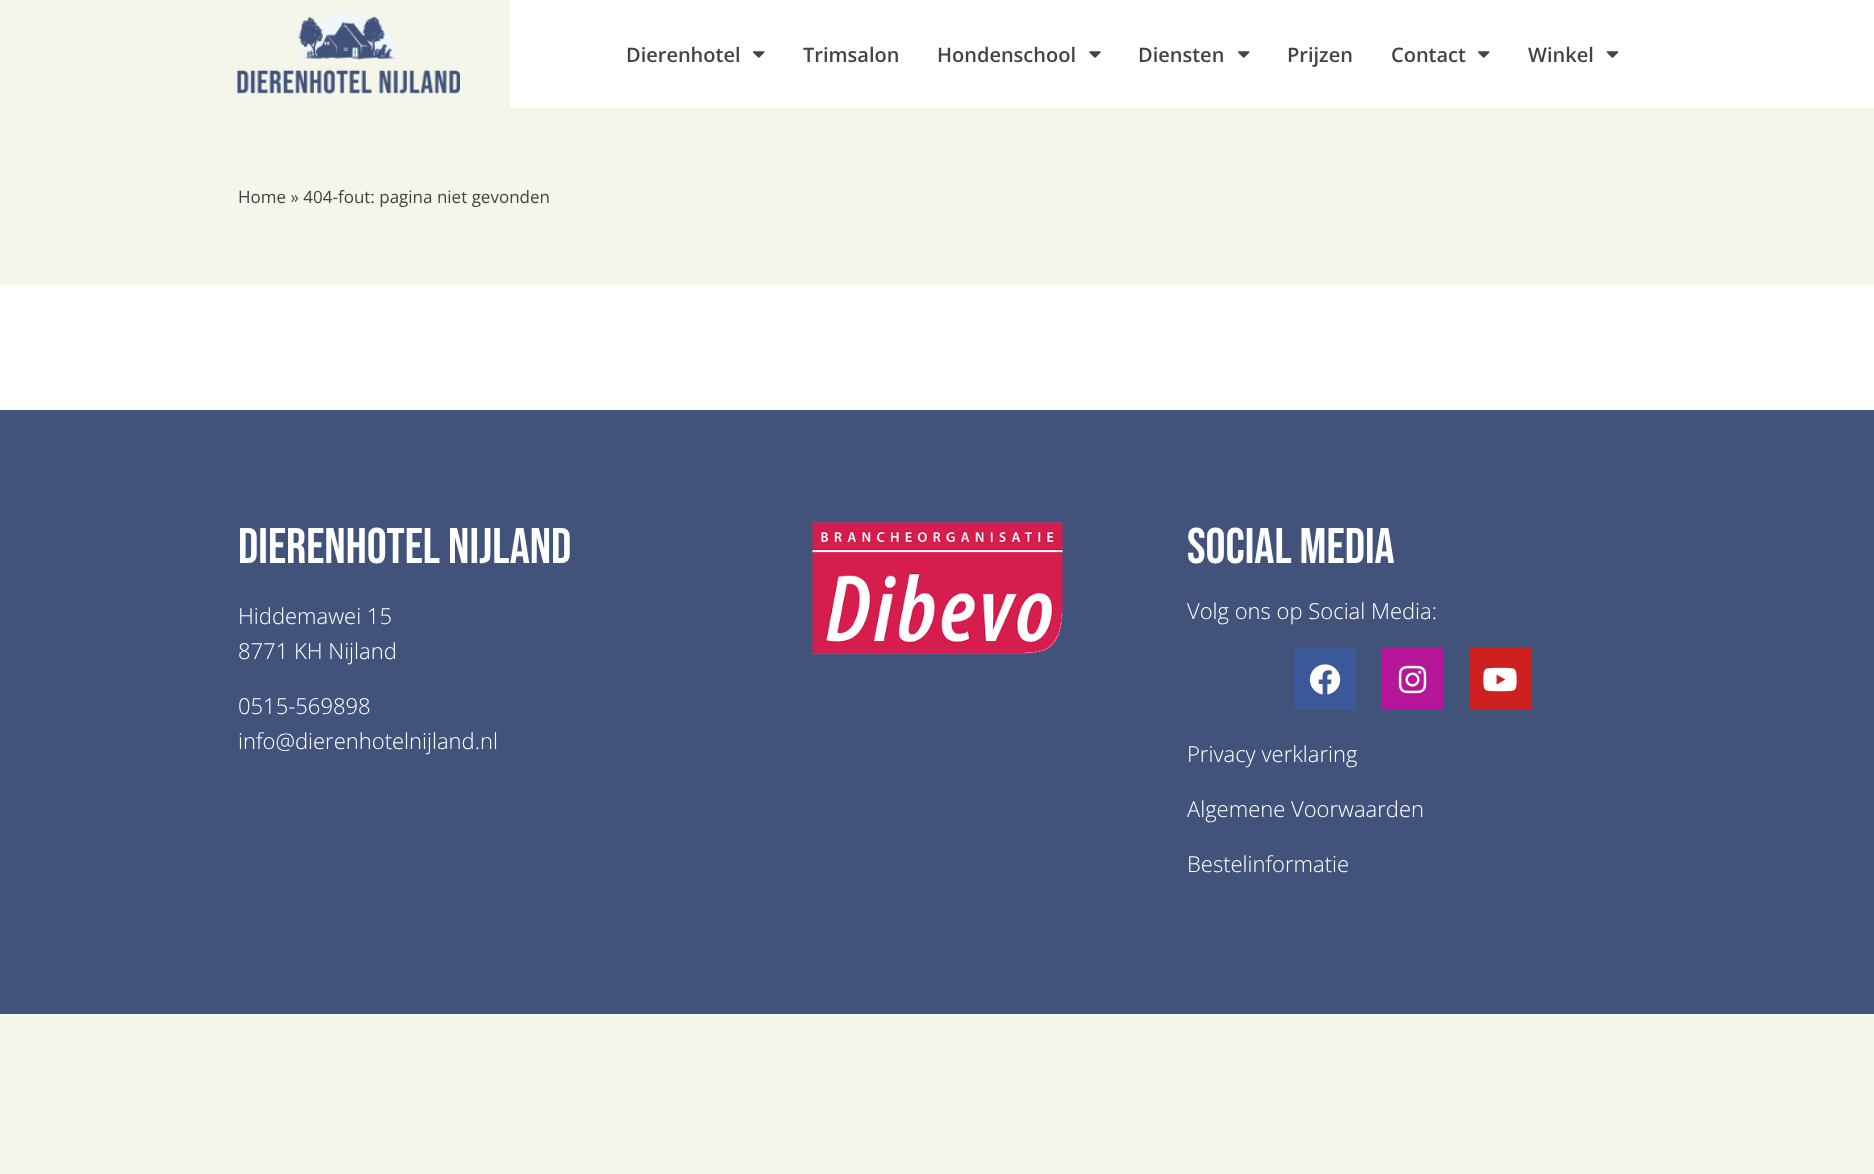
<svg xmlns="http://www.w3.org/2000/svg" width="1874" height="1174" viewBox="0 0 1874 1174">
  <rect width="100%" height="100%" fill="#f4f6e9"/>
  <rect x="510" y="0" width="1364" height="108" fill="#ffffff"/>
  <image x="237" y="12" width="223" height="82" href="img1.png"/>
  <text x="626" y="62" font-family="Open Sans" font-size="20" font-weight="600" fill="#444444">Dierenhotel</text>
  <image x="753" y="51" width="12" height="7" href="img2.png"/>
  <text x="803" y="62" font-family="Open Sans" font-size="20" font-weight="600" fill="#444444">Trimsalon</text>
  <text x="937" y="62" font-family="Open Sans" font-size="20" font-weight="600" fill="#444444">Hondenschool</text>
  <image x="1089" y="51" width="12" height="7" href="img3.png"/>
  <text x="1138" y="62" font-family="Open Sans" font-size="20" font-weight="600" fill="#444444">Diensten</text>
  <image x="1238" y="51" width="12" height="7" href="img2.png"/>
  <text x="1287" y="62" font-family="Open Sans" font-size="20" font-weight="600" fill="#444444">Prijzen</text>
  <text x="1391" y="62" font-family="Open Sans" font-size="20" font-weight="600" fill="#444444">Contact</text>
  <image x="1478" y="51" width="12" height="7" href="img2.png"/>
  <text x="1528" y="62" font-family="Open Sans" font-size="20" font-weight="600" fill="#444444">Winkel</text>
  <image x="1606" y="51" width="13" height="7" href="img4.png"/>
  <text x="238" y="203" font-family="Open Sans" font-size="17" fill="#444444">Home » 404-fout: pagina niet gevonden</text>
  <rect x="0" y="285" width="1874" height="125" fill="#ffffff"/>
  <rect x="0" y="410" width="1874" height="604" fill="#41537b"/>
  <text x="238" y="563" font-family="Bebas Neue" font-size="50" fill="#ffffff">DIERENHOTEL NIJLAND</text>
  <text x="238" y="624" font-family="Open Sans" font-size="22" font-weight="300" fill="#ffffff">Hiddemawei 15</text>
  <text x="238" y="659" font-family="Open Sans" font-size="22" font-weight="300" fill="#ffffff">8771 KH Nijland</text>
  <text x="238" y="714" font-family="Open Sans" font-size="22" font-weight="300" fill="#ffffff">0515-569898</text>
  <text x="238" y="749" font-family="Open Sans" font-size="22" font-weight="300" fill="#ffffff">info@dierenhotelnijland.nl</text>
  <image x="812" y="522" width="251" height="132" href="img5.png"/>
  <text x="1187" y="563" font-family="Bebas Neue" font-size="50" fill="#ffffff">SOCIAL MEDIA</text>
  <text x="1187" y="619" font-family="Open Sans" font-size="22" font-weight="300" fill="#ffffff">Volg ons op Social Media:</text>
  <rect x="1294" y="648" width="62" height="62" fill="#3b5998"/>
  <image x="1309" y="664" width="32" height="31" href="img6.png"/>
  <rect x="1381" y="648" width="63" height="62" fill="#b61699"/>
  <image x="1398" y="665" width="29" height="29" href="img7.png"/>
  <rect x="1469" y="648" width="62" height="62" fill="#cd201f"/>
  <image x="1483" y="667" width="34" height="25" href="img8.png"/>
  <text x="1187" y="762" font-family="Open Sans" font-size="22" font-weight="300" fill="#ffffff">Privacy verklaring</text>
  <text x="1187" y="817" font-family="Open Sans" font-size="22" font-weight="300" fill="#ffffff">Algemene Voorwaarden</text>
  <text x="1187" y="872" font-family="Open Sans" font-size="22" font-weight="300" fill="#ffffff">Bestelinformatie</text>
</svg>
